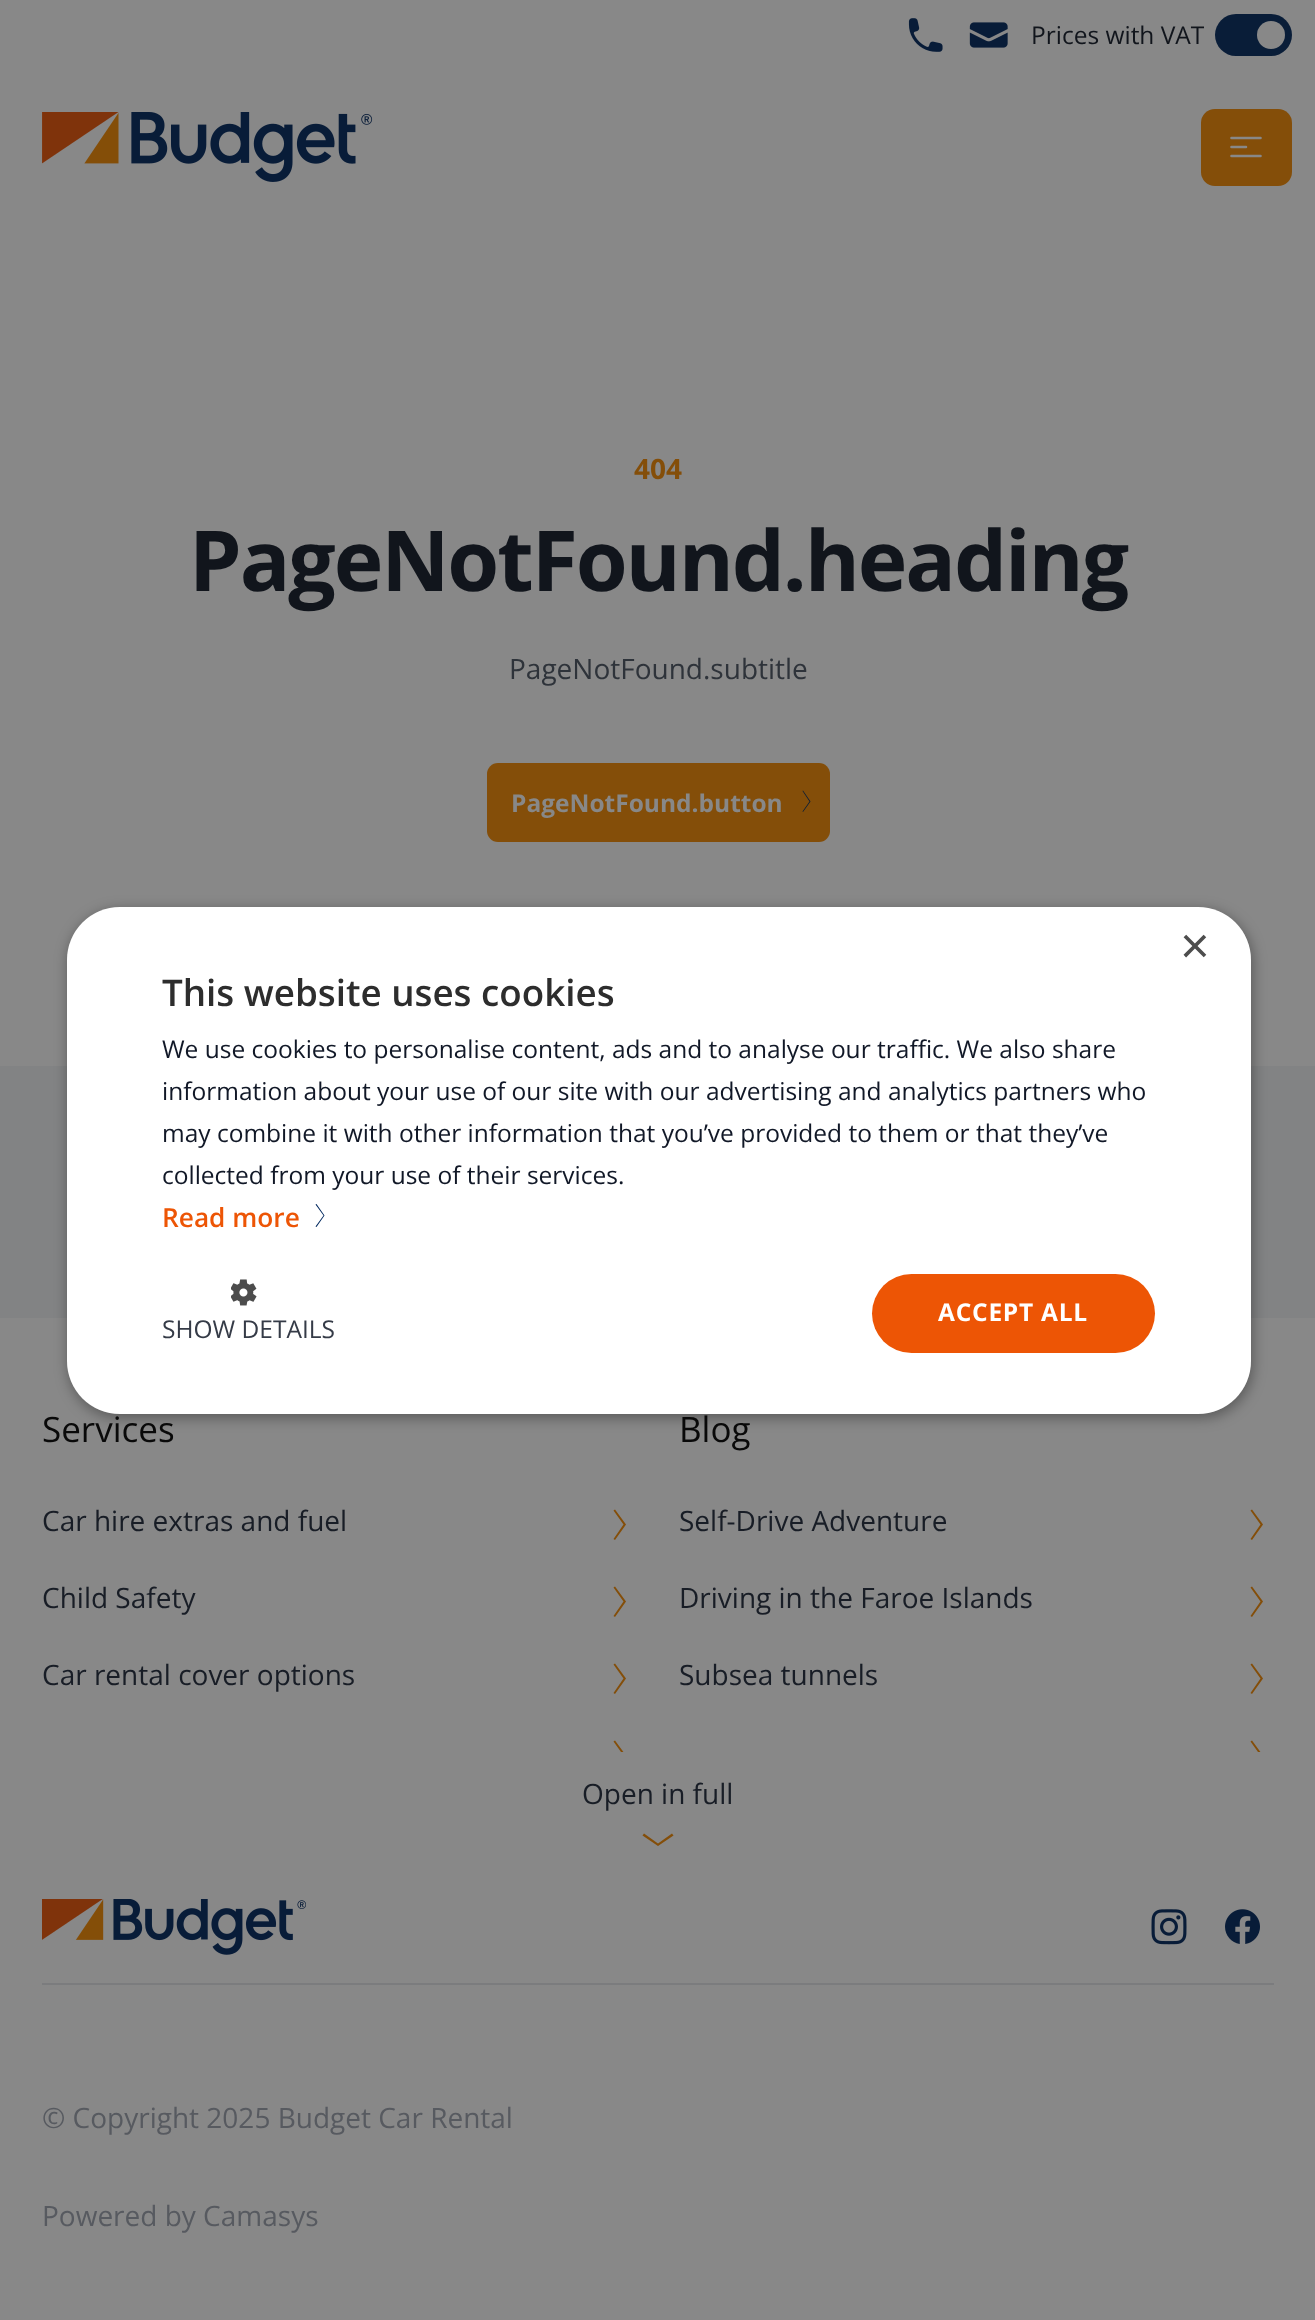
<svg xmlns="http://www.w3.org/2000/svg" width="1315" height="2320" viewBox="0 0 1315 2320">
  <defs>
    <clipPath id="clip1"><path d="M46 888H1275V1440H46ZM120 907H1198C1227.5 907 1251 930.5 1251 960V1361C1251 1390.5 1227.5 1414 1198 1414H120C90.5 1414 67 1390.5 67 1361V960C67 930.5 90.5 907 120 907Z" clip-rule="evenodd"/></clipPath>
    <filter id="blur1" x="-50%" y="-200%" width="200%" height="500%"><feGaussianBlur stdDeviation="7"/></filter>
    <clipPath id="clip2"><rect x="42" y="1402" width="1232" height="350"/></clipPath>
  </defs>
  <rect width="100%" height="100%" fill="#828384"/>
  <rect x="0" y="0" width="1315" height="1066" fill="#888888"/>
  <image x="908" y="18" width="35" height="34" href="img1.png"/>
  <image x="969" y="22" width="39" height="26" href="img2.png"/>
  <text x="1031" y="44" font-family="Open Sans" font-size="24.5" fill="#11151c">Prices with VAT</text>
  <rect x="1215" y="14" width="77" height="42" rx="21" fill="#091d38"/>
  <circle cx="1271" cy="35" r="14" fill="#888888"/>
  <image x="42" y="112" width="331" height="70" href="img3.png"/>
  <rect x="1201" y="109" width="91" height="77" rx="14" fill="#844e09"/>
  <path d="M1231.5 138H1260.5M1231.5 147H1246M1231.5 156H1260.5" fill="none" stroke="#888888" stroke-width="2.6" stroke-linecap="round" stroke-linejoin="round"/>
  <text x="634" y="479" font-family="Open Sans" font-size="28" font-weight="bold" fill="#844e09">404</text>
  <text x="189" y="591" font-family="Open Sans" font-size="84" font-weight="bold" letter-spacing="-2.1" fill="#11151c">PageNotFound.heading</text>
  <text x="509" y="679" font-family="Open Sans" font-size="28" fill="#2e333a">PageNotFound.subtitle</text>
  <rect x="487" y="763" width="343" height="79" rx="11" fill="#844e09"/>
  <text x="511" y="812" font-family="Open Sans" font-size="24.5" font-weight="bold" fill="#888888">PageNotFound.button</text>
  <path d="M782 812H782ZM803 790.5L802.5 791L809.5 801.5L802.5 811.5L803 812L810.5 801.5Z" fill="#091d38"/>
  <rect x="0" y="1318" width="1315" height="1002" fill="#888888"/>
  <g clip-path="url(#clip1)">
    <rect x="68" y="910" width="1185" height="508" rx="53" fill="#000000" fill-opacity="0.35" filter="url(#blur1)"/>
  </g>
  <rect x="67" y="907" width="1184" height="507" rx="53" fill="#ffffff"/>
  <text x="1180" y="963" font-family="Liberation Sans" font-size="51" fill="#4d4d4d">×</text>
  <text x="162" y="1006" font-family="Open Sans" font-size="36.75" font-weight="600" fill="#2d2d2d">This website uses cookies</text>
  <text x="162" y="1058" font-family="'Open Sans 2'" font-size="24.5" fill="#111827">We use cookies to personalise content, ads and to analyse our traffic. We also share</text>
  <text x="162" y="1100" font-family="'Open Sans 2'" font-size="24.5" fill="#111827">information about your use of our site with our advertising and analytics partners who</text>
  <text x="162" y="1142" font-family="'Open Sans 2'" font-size="24.5" fill="#111827">may combine it with other information that you’ve provided to them or that they’ve</text>
  <text x="162" y="1184" font-family="'Open Sans 2'" font-size="24.5" fill="#111827">collected from your use of their services.</text>
  <text x="162" y="1227" font-family="Open Sans" font-size="26.25" font-weight="600" fill="#ed5505">Read more</text>
  <path d="M316.5 1204L315.5 1204.5L323.5 1215.5L315.5 1226.5L316.5 1227L324.5 1215.5Z" fill="#00285f"/>
  <rect x="872" y="1274" width="283" height="79" rx="39.5" fill="#ed5505"/>
  <text x="938" y="1321" font-family="'Open Sans 2'" font-size="24.5" font-weight="bold" letter-spacing="0.75" fill="#ffffff">ACCEPT ALL</text>
  <image x="231" y="1279" width="26" height="27" href="img4.png"/>
  <text x="162" y="1338" font-family="'Open Sans 2'" font-size="24.5" fill="#353b47">SHOW DETAILS</text>
  <text x="42" y="1442" font-family="Open Sans" font-size="35" fill="#090909">Services</text>
  <text x="42" y="1531" font-family="Open Sans" font-size="28" fill="#181d26">Car hire extras and fuel</text>
  <path d="M615 1540L613.5 1539L623.5 1524.5L613.5 1510.5L615 1509.5L626 1524.5Z" fill="#844e09"/>
  <text x="42" y="1608" font-family="Open Sans" font-size="28" fill="#181d26">Child Safety</text>
  <path d="M615 1617L613.5 1616L623.5 1601.5L613.5 1587.5L615 1586.5L626 1601.5Z" fill="#844e09"/>
  <text x="42" y="1685" font-family="Open Sans" font-size="28" fill="#181d26">Car rental cover options</text>
  <path d="M615 1694L613.5 1693L623.5 1678.5L613.5 1664.5L615 1663.5L626 1678.5Z" fill="#844e09"/>
  <g clip-path="url(#clip2)">
    <path d="M615 1771L613.5 1770L623.5 1755.5L613.5 1741.5L615 1740.5L626 1755.5Z" fill="#844e09"/>
  </g>
  <text x="679" y="1442" font-family="Open Sans" font-size="35" fill="#090909">Blog</text>
  <text x="679" y="1531" font-family="Open Sans" font-size="28" fill="#181d26">Self-Drive Adventure</text>
  <path d="M1252 1540L1250.5 1539L1260.5 1524.5L1250.5 1510.5L1252 1509.5L1263 1524.5Z" fill="#844e09"/>
  <text x="679" y="1608" font-family="Open Sans" font-size="28" fill="#181d26">Driving in the Faroe Islands</text>
  <path d="M1252 1617L1250.5 1616L1260.5 1601.5L1250.5 1587.5L1252 1586.5L1263 1601.5Z" fill="#844e09"/>
  <text x="679" y="1685" font-family="Open Sans" font-size="28" fill="#181d26">Subsea tunnels</text>
  <path d="M1252 1694L1250.5 1693L1260.5 1678.5L1250.5 1664.5L1252 1663.5L1263 1678.5Z" fill="#844e09"/>
  <g clip-path="url(#clip2)">
    <path d="M1252 1771L1250.5 1770L1260.5 1755.5L1250.5 1741.5L1252 1740.5L1263 1755.5Z" fill="#844e09"/>
  </g>
  <text x="582" y="1804" font-family="Open Sans" font-size="28" fill="#181d26">Open in full</text>
  <path d="M658 1846L642.5 1835.5L644 1833.5L658 1843.5L672 1833.5L673.5 1835.5Z" fill="#844e09"/>
  <image x="42" y="1899" width="264" height="56" href="img5.png"/>
  <image x="1151" y="1909" width="36" height="36" href="img6.png"/>
  <image x="1225" y="1909" width="35" height="35" href="img7.png"/>
  <rect x="42" y="1983" width="1232" height="2" fill="#7b7c7e"/>
  <text x="42" y="2128" font-family="Open Sans" font-size="28" fill="#575a60">© Copyright 2025 Budget Car Rental</text>
  <text x="42" y="2226" font-family="Open Sans" font-size="28" fill="#575a60">Powered by Camasys</text>
</svg>
